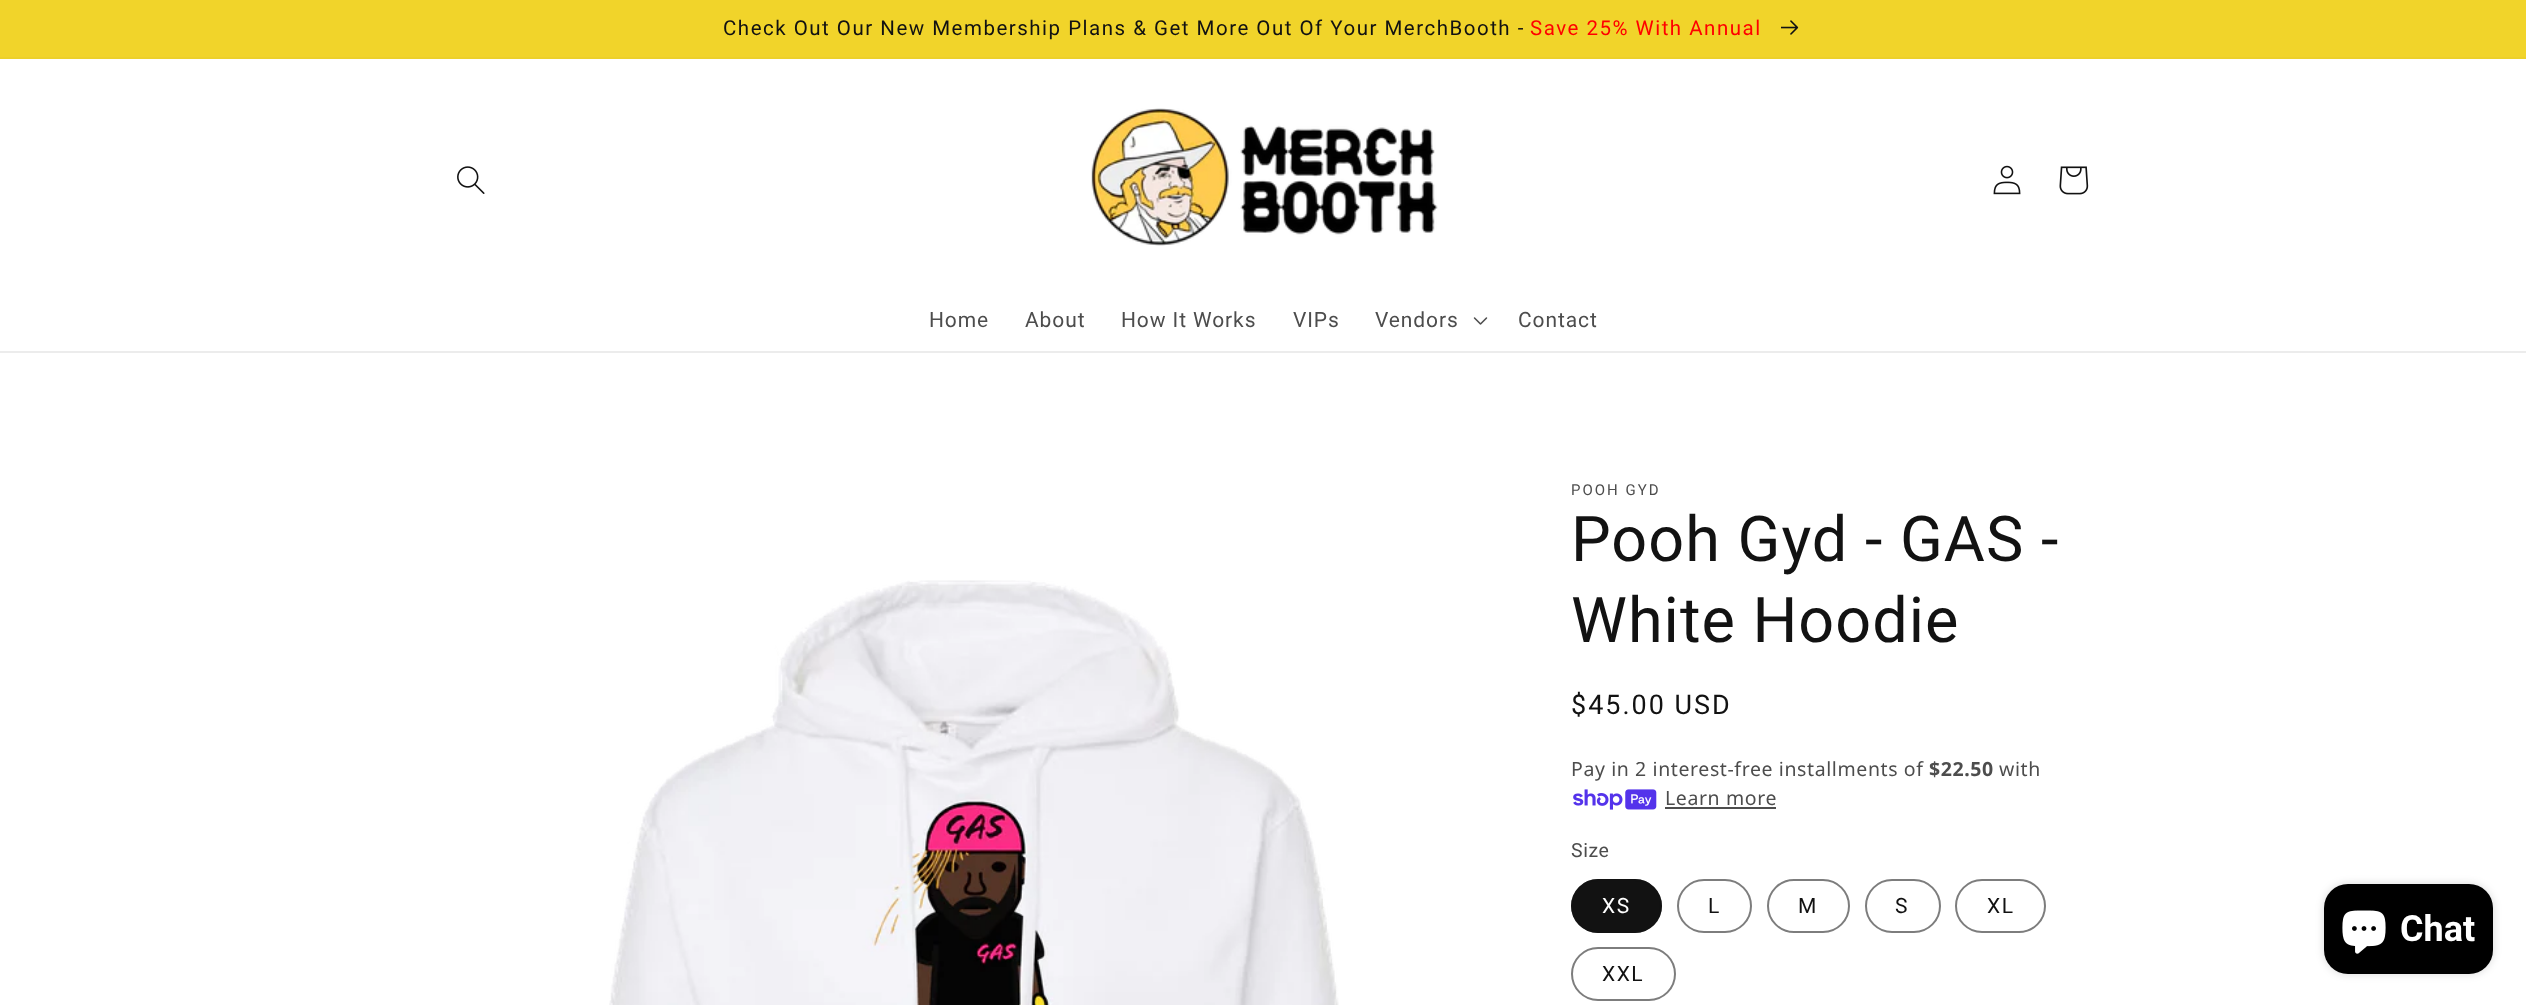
<svg xmlns="http://www.w3.org/2000/svg" width="2526" height="1005" viewBox="0 0 2526 1005">
  <defs>
    <filter id="blur1" x="-50%" y="-200%" width="200%" height="500%"><feGaussianBlur stdDeviation="4"/></filter>
  </defs>
  <rect width="100%" height="100%" fill="#ffffff"/>
  <rect x="0" y="57" width="2526" height="2" fill="#ecd02a"/>
  <rect x="0" y="0" width="2526" height="57" fill="#f1d42a"/>
  <text x="723" y="35" font-family="Roboto" font-size="20.5" letter-spacing="1.5" fill="#121212">Check Out Our New Membership Plans &amp; Get More Out Of Your MerchBooth -</text>
  <text x="1530" y="35" font-family="Roboto" font-size="20.5" letter-spacing="1.5" fill="#ff0000">Save 25% With Annual</text>
  <image x="1781" y="20" width="18" height="15" href="img1.png"/>
  <rect x="0" y="351" width="2526" height="2" fill="#ececec"/>
  <image x="457" y="166" width="28" height="28" href="img2.png"/>
  <image x="1091" y="108" width="347" height="138" href="img3.png"/>
  <image x="1993" y="165" width="28" height="30" href="img4.png"/>
  <image x="2059" y="166" width="30" height="29" href="img5.png"/>
  <text x="929" y="327" font-family="Roboto" font-size="21" letter-spacing="0.9" fill="#4d4d4d">Home</text>
  <text x="1025" y="327" font-family="Roboto" font-size="21" letter-spacing="0.9" fill="#4d4d4d">About</text>
  <text x="1121" y="327" font-family="Roboto" font-size="21" letter-spacing="0.9" fill="#4d4d4d">How It Works</text>
  <text x="1293" y="327" font-family="Roboto" font-size="21" letter-spacing="0.9" fill="#4d4d4d">VIPs</text>
  <text x="1375" y="327" font-family="Roboto" font-size="21" letter-spacing="0.9" fill="#4d4d4d">Vendors</text>
  <image x="1473" y="317" width="15" height="8" href="img6.png"/>
  <text x="1518" y="327" font-family="Roboto" font-size="21" letter-spacing="0.9" fill="#4d4d4d">Contact</text>
  <image x="609" y="580" width="730" height="425" href="img7.png"/>
  <text x="1571" y="495" font-family="Roboto" font-size="15" letter-spacing="2" fill="#4d4d4d">POOH GYD</text>
  <text x="1571" y="561" font-family="Roboto" font-size="63" letter-spacing="1" fill="#121212">Pooh Gyd - GAS -</text>
  <text x="1571" y="642" font-family="Roboto" font-size="63" letter-spacing="1" fill="#121212">White Hoodie</text>
  <text x="1571" y="714" font-family="Roboto" font-size="27" letter-spacing="2" fill="#121212">$45.00 USD</text>
  <text x="1571" y="776" font-family="Noto Sans" font-size="19.5" letter-spacing="0.6" fill="#4d4d4d">Pay in 2 interest-free installments of</text>
  <text x="1929" y="776" font-family="Noto Sans" font-size="19.5" font-weight="bold" letter-spacing="0.6" fill="#4d4d4d">$22.50</text>
  <text x="1999" y="776" font-family="Noto Sans" font-size="19.5" letter-spacing="0.6" fill="#4d4d4d">with</text>
  <image x="1573" y="789" width="84" height="21" href="img8.png"/>
  <text x="1665" y="805" font-family="Noto Sans" font-size="19.5" letter-spacing="0.6" fill="#4d4d4d">Learn more</text>
  <rect x="1665" y="807" width="111" height="2" fill="#4d4d4d"/>
  <text x="1571" y="857" font-family="Roboto" font-size="19.5" letter-spacing="0.6" fill="#4d4d4d">Size</text>
  <rect x="1571" y="879" width="91" height="54" rx="27" fill="#121212"/>
  <rect x="1572" y="880" width="89" height="52" rx="26" fill="none" stroke="#121212" stroke-opacity="0.55" stroke-width="2"/>
  <text x="1602" y="913" font-family="Roboto" font-size="21" letter-spacing="1.5" fill="#ffffff">XS</text>
  <rect x="1678" y="880" width="73" height="52" rx="26" fill="none" stroke="#7d7d7d" stroke-width="2"/>
  <text x="1708" y="913" font-family="Roboto" font-size="21" letter-spacing="1.5" fill="#121212">L</text>
  <rect x="1768" y="880" width="81" height="52" rx="26" fill="none" stroke="#7d7d7d" stroke-width="2"/>
  <text x="1798" y="913" font-family="Roboto" font-size="21" letter-spacing="1.5" fill="#121212">M</text>
  <rect x="1866" y="880" width="74" height="52" rx="26" fill="none" stroke="#7d7d7d" stroke-width="2"/>
  <text x="1895" y="913" font-family="Roboto" font-size="21" letter-spacing="1.5" fill="#121212">S</text>
  <rect x="1956" y="880" width="89" height="52" rx="26" fill="none" stroke="#7d7d7d" stroke-width="2"/>
  <text x="1987" y="913" font-family="Roboto" font-size="21" letter-spacing="1.5" fill="#121212">XL</text>
  <rect x="1572" y="948" width="103" height="52" rx="26" fill="none" stroke="#7d7d7d" stroke-width="2"/>
  <text x="1602" y="981" font-family="Roboto" font-size="21" letter-spacing="1.5" fill="#121212">XXL</text>
  <rect x="2324" y="884" width="169" height="90" rx="24" fill="#000000" fill-opacity="0.15" filter="url(#blur1)"/>
  <rect x="2324" y="884" width="169" height="90" rx="24" fill="#000000"/>
  <image x="2342" y="910" width="44" height="44" href="img9.png"/>
  <text x="2400" y="941" font-family="Roboto" font-size="36" font-weight="bold" fill="#ffffff">Chat</text>
</svg>
